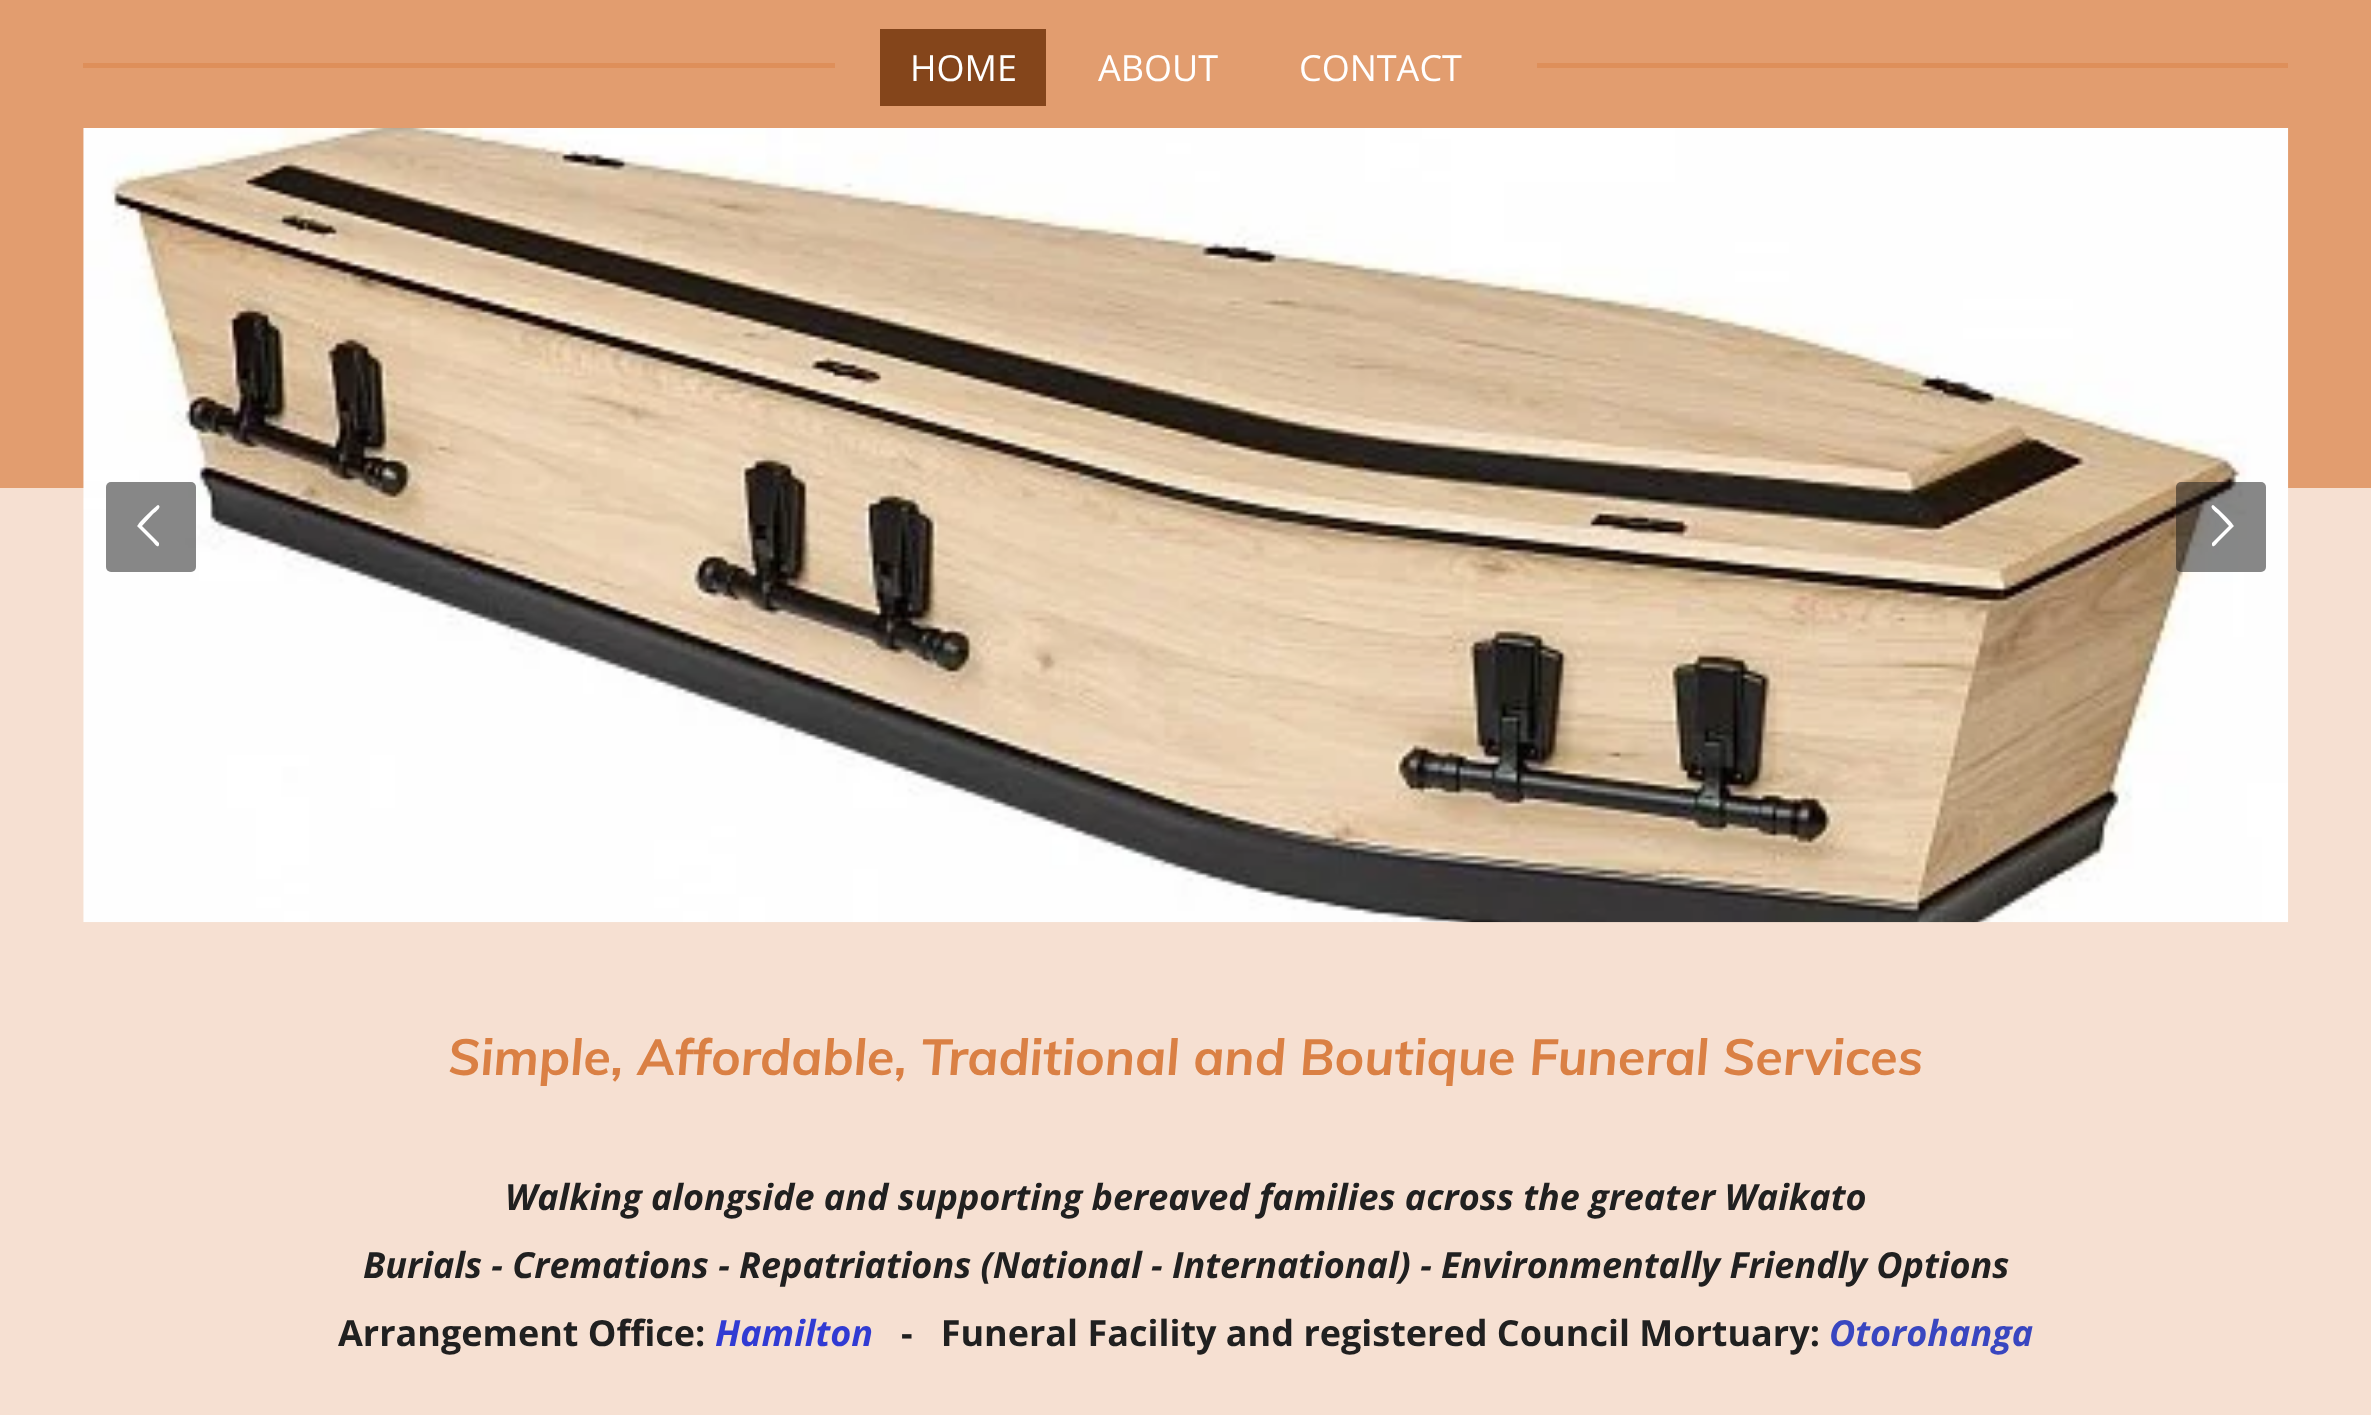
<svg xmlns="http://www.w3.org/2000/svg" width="2371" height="1415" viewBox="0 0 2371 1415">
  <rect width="100%" height="100%" fill="#f6e0d2"/>
  <rect x="0" y="0" width="2371" height="488" fill="#e29d6f"/>
  <rect x="83" y="63" width="752" height="5" fill="#de8f5a"/>
  <rect x="880" y="29" width="166" height="77" fill="#84451b"/>
  <text x="910" y="81" font-family="Open Sans" font-size="36" fill="#ffffff">HOME</text>
  <text x="1098" y="81" font-family="Open Sans" font-size="36" fill="#ffffff">ABOUT</text>
  <text x="1299" y="81" font-family="Open Sans" font-size="36" fill="#ffffff">CONTACT</text>
  <rect x="1537" y="63" width="751" height="5" fill="#de8f5a"/>
  <image x="83" y="128" width="2206" height="795" href="img1.png"/>
  <rect x="106" y="482" width="90" height="90" rx="5" fill="#0f0f0f" fill-opacity="0.5"/>
  <path d="M159 543V545C158 549 154 543 153 542L137 526L138 525C139 522 157 505 158 505C163 507 154 513 153 514L142 526Z" fill="#ffffff"/>
  <rect x="2176" y="482" width="90" height="90" rx="5" fill="#0f0f0f" fill-opacity="0.5"/>
  <path d="M2212 543L2229 526L2218 514C2217 513 2208 507 2213 505C2214 505 2232 522 2233 525L2234 526L2218 542C2217 543 2213 549 2212 545Z" fill="#ffffff"/>
  <text x="448" y="1075" font-family="Muli" font-size="50.4" font-weight="bold" font-style="italic" fill="#da8044">Simple, Affordable, Traditional and Boutique Funeral Services</text>
  <text x="505" y="1210" font-family="Open Sans" font-size="36" font-weight="bold" font-style="italic" fill="#202020">Walking alongside and supporting bereaved families across the greater Waikato</text>
  <text x="363" y="1278" font-family="Open Sans" font-size="36" font-weight="bold" font-style="italic" fill="#202020">Burials - Cremations - Repatriations (National - International) - Environmentally Friendly Options</text>
  <text x="338" y="1346" font-family="Open Sans" font-size="36" font-weight="bold" fill="#202020">Arrangement Office:</text>
  <text x="715" y="1346" font-family="Open Sans" font-size="36" font-weight="bold" font-style="italic" fill="#313bd3">Hamilton</text>
  <text x="901" y="1346" font-family="Open Sans" font-size="36" font-weight="bold" fill="#202020" xml:space="preserve">-   Funeral Facility and registered Council Mortuary:</text>
  <text x="1829" y="1346" font-family="Open Sans" font-size="36" font-weight="bold" font-style="italic" fill="#3946c0">Otorohanga</text>
</svg>
